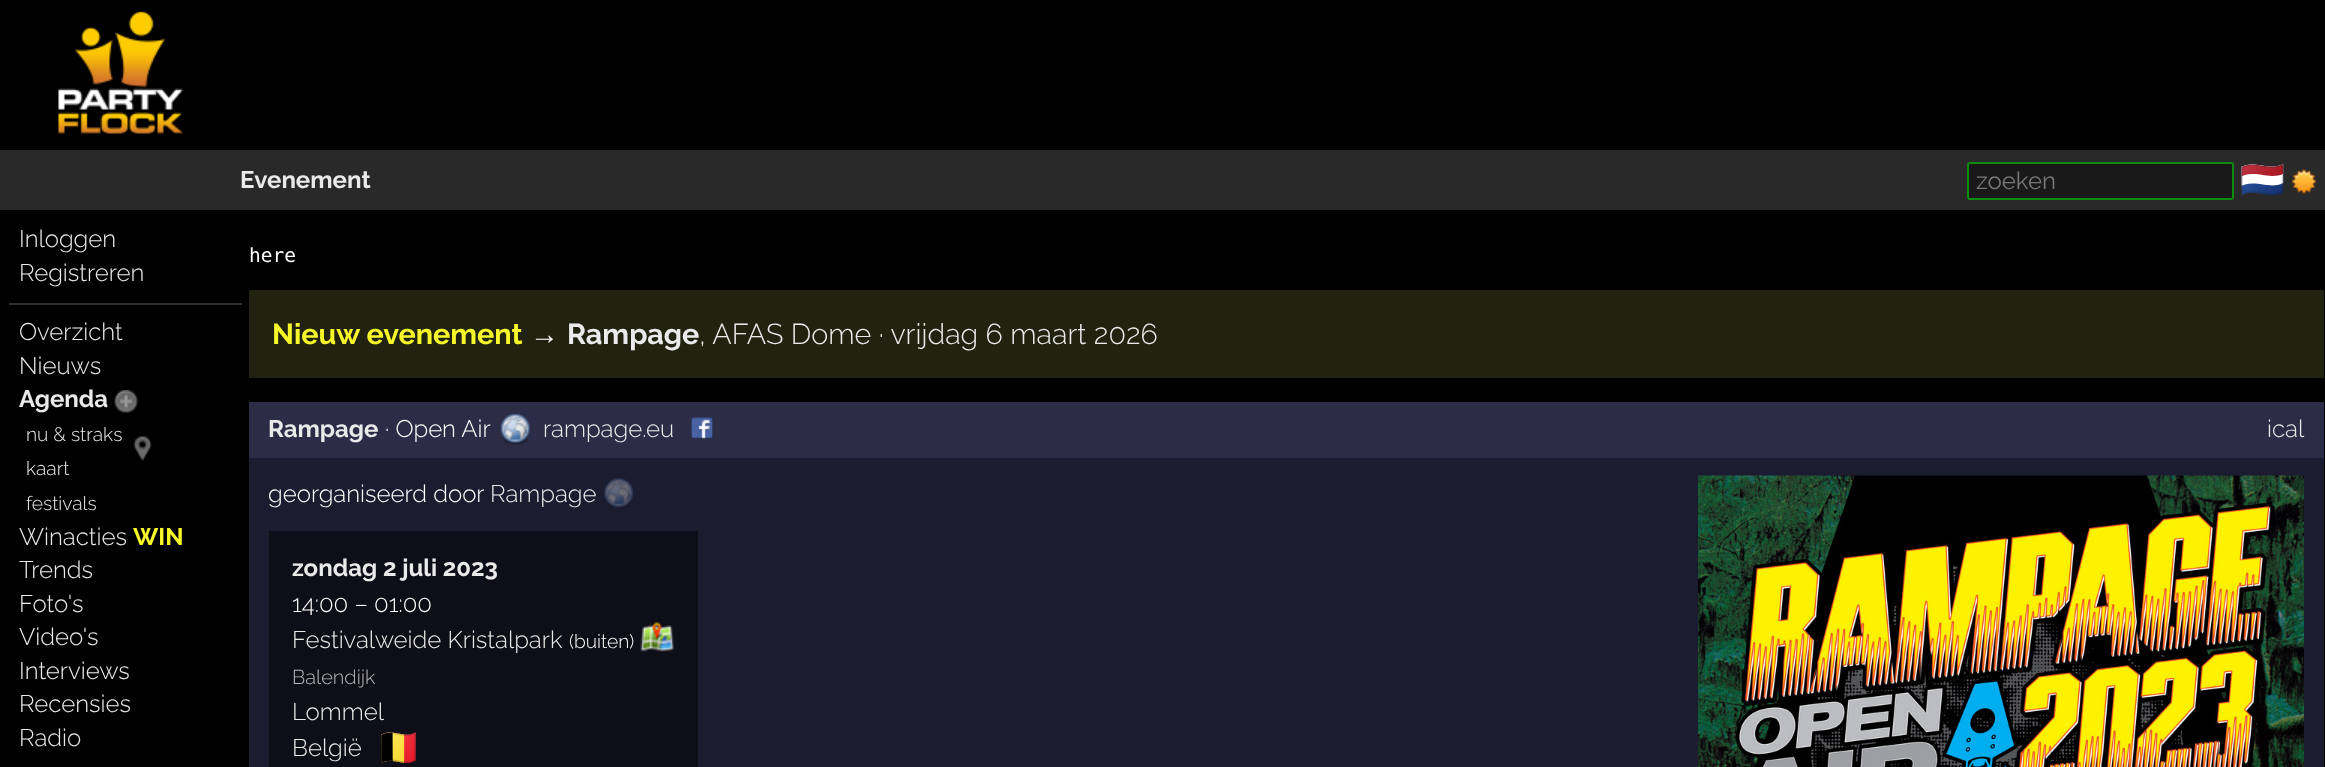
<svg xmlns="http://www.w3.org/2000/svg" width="2325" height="767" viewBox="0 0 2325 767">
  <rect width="100%" height="100%" fill="#000000"/>
  <image x="58" y="11" width="126" height="123" href="img1.png"/>
  <rect x="0" y="150" width="2325" height="60" fill="#292929"/>
  <text x="240" y="188" font-family="Raleway" font-size="24" font-weight="bold" fill="#eaeaea">Evenement</text>
  <rect x="1967" y="162" width="267" height="38" rx="3" fill="#191919"/>
  <rect x="1968" y="163" width="265" height="36" rx="2" fill="none" stroke="#00ff00" stroke-opacity="0.5" stroke-width="2"/>
  <text x="1976" y="189" font-family="Raleway" font-size="24" fill="#777777">zoeken</text>
  <text x="2240" y="192" font-family="Noto Color Emoji" font-size="36" fill="#eaeaea">🇳🇱</text>
  <image x="2292" y="169" width="24" height="25" href="img2.png"/>
  <text x="19" y="247" font-family="Raleway" font-size="24" font-weight="300" fill="#eaeaea">Inloggen</text>
  <text x="19" y="281" font-family="Raleway" font-size="24" font-weight="300" fill="#eaeaea">Registreren</text>
  <rect x="9" y="303" width="233" height="2" fill="#2e2e2e"/>
  <text x="19" y="340" font-family="Raleway" font-size="24" font-weight="300" fill="#eaeaea">Overzicht</text>
  <text x="19" y="374" font-family="Raleway" font-size="24" font-weight="300" fill="#eaeaea">Nieuws</text>
  <text x="19" y="407" font-family="Raleway" font-size="24" font-weight="bold" fill="#eaeaea">Agenda</text>
  <image x="114" y="390" width="24" height="23" href="img3.png"/>
  <text x="26" y="441" font-family="Raleway" font-size="19.25" font-weight="300" fill="#eaeaea">nu &amp; straks</text>
  <image x="133" y="436" width="19" height="25" href="img4.png"/>
  <text x="26" y="475" font-family="Raleway" font-size="19.25" font-weight="300" fill="#eaeaea">kaart</text>
  <text x="26" y="510" font-family="Raleway" font-size="19.25" font-weight="300" fill="#eaeaea">festivals</text>
  <text x="19" y="545" font-family="Raleway" font-size="24" font-weight="300" fill="#eaeaea">Winacties</text>
  <text x="133" y="545" font-family="Raleway" font-size="24" font-weight="bold" fill="#f6f62a">WIN</text>
  <text x="19" y="578" font-family="Raleway" font-size="24" font-weight="300" fill="#eaeaea">Trends</text>
  <text x="19" y="612" font-family="Raleway" font-size="24" font-weight="300" fill="#eaeaea">Foto's</text>
  <text x="19" y="645" font-family="Raleway" font-size="24" font-weight="300" fill="#eaeaea">Video's</text>
  <text x="19" y="679" font-family="Raleway" font-size="24" font-weight="300" fill="#eaeaea">Interviews</text>
  <text x="19" y="712" font-family="Raleway" font-size="24" font-weight="300" fill="#eaeaea">Recensies</text>
  <text x="19" y="746" font-family="Raleway" font-size="24" font-weight="300" fill="#eaeaea">Radio</text>
  <text x="249" y="262" font-family="DejaVu Sans Mono" font-size="19.5" fill="#ffffff">here</text>
  <rect x="249" y="290" width="2075" height="88" rx="1.5" fill="#222211"/>
  <text x="272" y="344" font-family="Raleway" font-size="28.75" font-weight="bold" fill="#f6f62a">Nieuw evenement</text>
  <text x="530" y="344" font-family="Liberation Sans" font-size="28.75" fill="#ffffff">→</text>
  <text x="567" y="344" font-family="Raleway" font-size="28.75" font-weight="bold" fill="#eaeaea">Rampage</text>
  <text x="699" y="344" font-family="Raleway" font-size="28.75" font-weight="300" fill="#eaeaea">, AFAS Dome · vrijdag 6 maart 2026</text>
  <rect x="249" y="458" width="2075" height="309" fill="#1c1c30"/>
  <rect x="249" y="402" width="2075" height="56" fill="#2c2c46"/>
  <text x="268" y="437" font-family="Raleway" font-size="24" font-weight="bold" fill="#eaeaea">Rampage</text>
  <text x="385" y="437" font-family="Raleway" font-size="24" font-weight="300" fill="#ffffff">· Open Air</text>
  <image x="500" y="413" width="30" height="32" href="img5.png"/>
  <text x="543" y="437" font-family="Raleway" font-size="24" font-weight="300" fill="#eaeaea">rampage.eu</text>
  <image x="691" y="417" width="22" height="22" href="img6.png"/>
  <text x="2267" y="437" font-family="Raleway" font-size="24" font-weight="300" fill="#eaeaea">ical</text>
  <text x="268" y="502" font-family="Raleway" font-size="24" font-weight="300" fill="#ffffff">georganiseerd door</text>
  <text x="490" y="502" font-family="Raleway" font-size="24" font-weight="300" fill="#eaeaea">Rampage</text>
  <image x="604" y="478" width="30" height="31" href="img7.png"/>
  <image x="1698" y="475" width="606" height="292" href="img8.png"/>
  <rect x="269" y="531" width="429" height="236" fill="#0e0e18"/>
  <text x="292" y="576" font-family="Raleway" font-size="24" font-weight="bold" fill="#eaeaea">zondag 2 juli 2023</text>
  <text x="292" y="612" font-family="Raleway" font-size="24" font-weight="300" fill="#ffffff">14:00 – 01:00</text>
  <text x="292" y="648" font-family="Raleway" font-size="24" font-weight="300" fill="#eaeaea">Festivalweide Kristalpark</text>
  <text x="569" y="648" font-family="Raleway" font-size="19.25" font-weight="300" fill="#ffffff">(buiten)</text>
  <image x="640" y="622" width="34" height="30" href="img9.png"/>
  <text x="292" y="684" font-family="Raleway" font-size="20" font-weight="300" fill="#b7b7ba">Balendijk</text>
  <text x="292" y="720" font-family="Raleway" font-size="24" font-weight="300" fill="#eaeaea">Lommel</text>
  <text x="292" y="756" font-family="Raleway" font-size="24" font-weight="300" fill="#eaeaea">België</text>
  <text x="376" y="760" font-family="Noto Color Emoji" font-size="36" fill="#cfcfd1">🇧🇪</text>
</svg>
